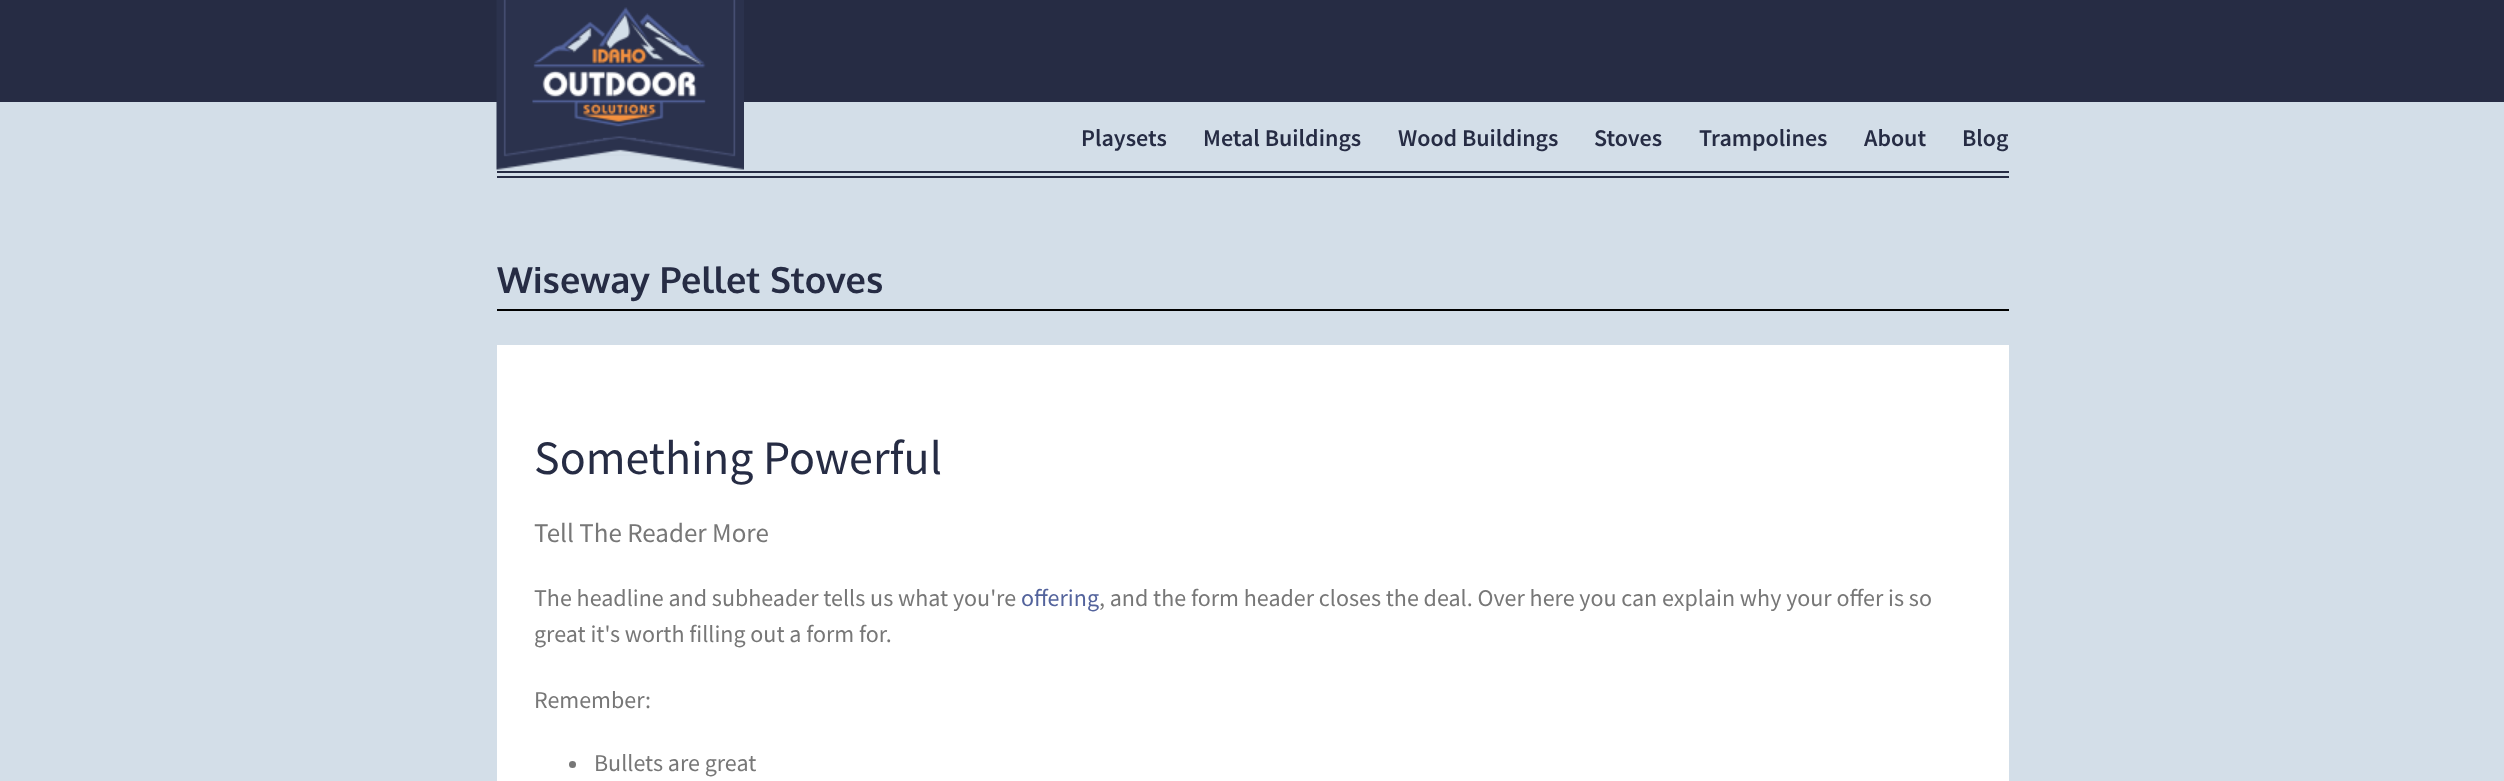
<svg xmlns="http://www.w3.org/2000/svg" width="2504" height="781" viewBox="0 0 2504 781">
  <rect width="100%" height="100%" fill="#d3dee8"/>
  <rect x="0" y="0" width="2504" height="102" fill="#262c44"/>
  <image x="496" y="0" width="248" height="170" href="img1.png"/>
  <rect x="497" y="171" width="1512" height="2" fill="#262c44"/>
  <rect x="497" y="176" width="1512" height="2" fill="#262c44"/>
  <text x="1081" y="146" font-family="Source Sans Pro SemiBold" font-size="24" font-weight="600" fill="#262c44">Playsets</text>
  <text x="1203" y="146" font-family="Source Sans Pro SemiBold" font-size="24" font-weight="600" fill="#262c44">Metal Buildings</text>
  <text x="1398" y="146" font-family="Source Sans Pro SemiBold" font-size="24" font-weight="600" fill="#262c44">Wood Buildings</text>
  <text x="1594" y="146" font-family="Source Sans Pro SemiBold" font-size="24" font-weight="600" fill="#262c44">Stoves</text>
  <text x="1699" y="146" font-family="Source Sans Pro SemiBold" font-size="24" font-weight="600" fill="#262c44">Trampolines</text>
  <text x="1864" y="146" font-family="Source Sans Pro SemiBold" font-size="24" font-weight="600" fill="#262c44">About</text>
  <text x="1962" y="146" font-family="Source Sans Pro SemiBold" font-size="24" font-weight="600" fill="#262c44">Blog</text>
  <rect x="497" y="309" width="1512" height="2" fill="#000000"/>
  <text x="497" y="293" font-family="Oxygen" font-size="36" font-weight="bold" fill="#262c44">Wiseway Pellet Stoves</text>
  <rect x="497" y="345" width="1512" height="436" fill="#ffffff"/>
  <text x="534" y="474" font-family="Source Sans Pro" font-size="48" fill="#262c44">Something Powerful</text>
  <text x="534" y="542" font-family="Source Sans Pro" font-size="27" fill="#777777">Tell The Reader More</text>
  <text x="534" y="606" font-family="Source Sans Pro" font-size="24" fill="#777777">The headline and subheader tells us what you're</text>
  <text x="1021" y="606" font-family="Source Sans Pro" font-size="24" fill="#53639c">offering</text>
  <text x="1099" y="606" font-family="Source Sans Pro" font-size="24" fill="#777777">, and the form header closes the deal. Over here you can explain why your offer is so</text>
  <text x="534" y="642" font-family="Source Sans Pro" font-size="24" fill="#777777">great it's worth filling out a form for.</text>
  <text x="534" y="708" font-family="Source Sans Pro" font-size="24" fill="#777777">Remember:</text>
  <circle cx="572.5" cy="764.5" r="3.5" fill="#777777"/>
  <text x="594" y="771" font-family="Source Sans Pro" font-size="24" fill="#777777">Bullets are great</text>
</svg>
